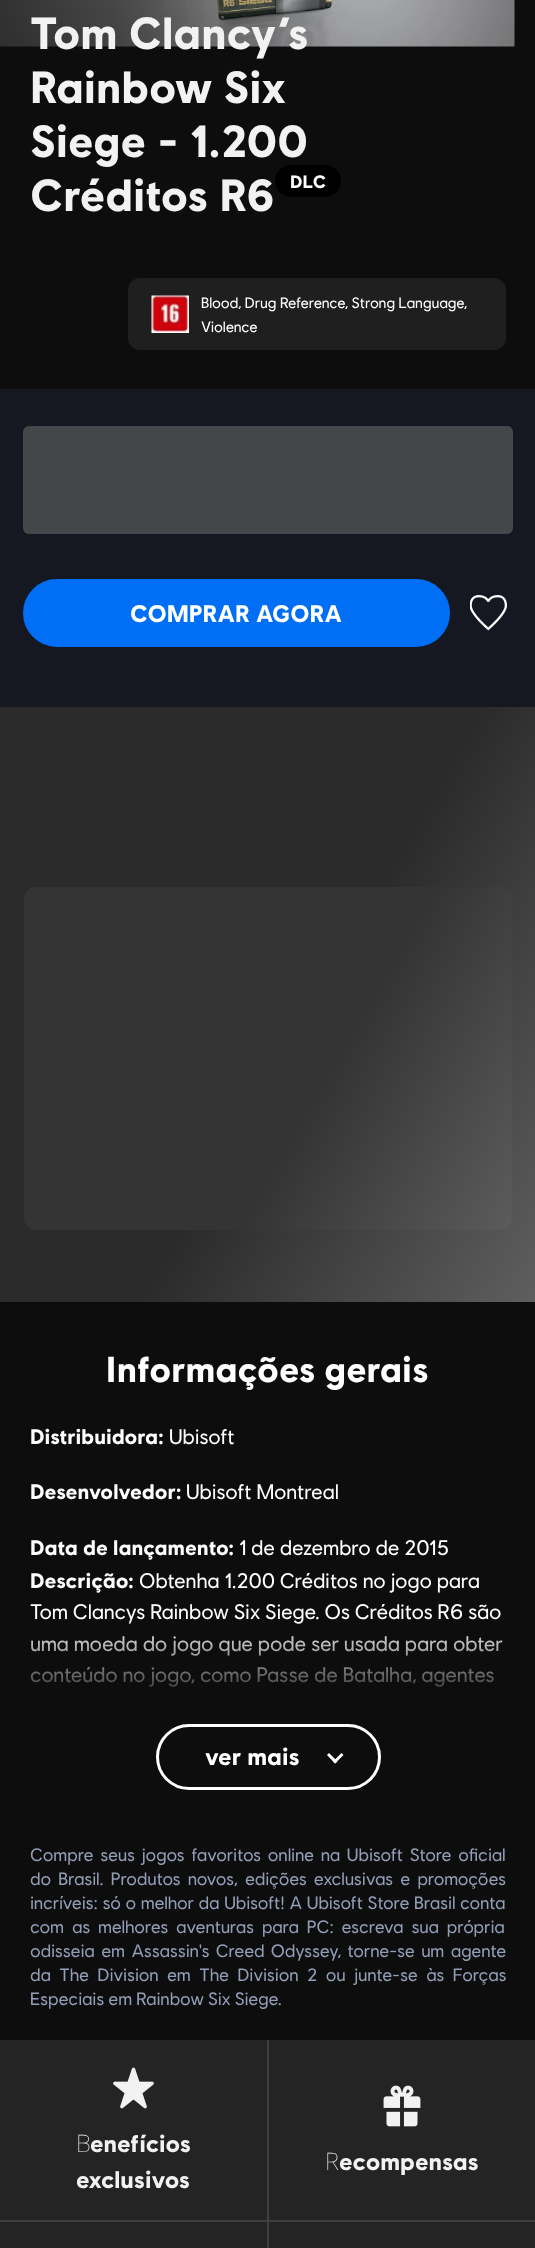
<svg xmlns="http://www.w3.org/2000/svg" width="535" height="2248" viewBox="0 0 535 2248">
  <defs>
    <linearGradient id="g1" gradientUnits="userSpaceOnUse" x1="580" y1="-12" x2="-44" y2="300"><stop offset="0.46" stop-color="#0d0d0d" stop-opacity="0"/><stop offset="1" stop-color="#0d0d0d" stop-opacity="0.96"/></linearGradient>
    <linearGradient id="g2" gradientUnits="userSpaceOnUse" x1="72" y1="582" x2="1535" y2="1427"><stop offset="0" stop-color="#2b2b2b"/><stop offset="0.25" stop-color="#2b2b2b"/><stop offset="0.5" stop-color="#6b6b6b"/><stop offset="0.75" stop-color="#2b2b2b"/><stop offset="1" stop-color="#2b2b2b"/></linearGradient>
    <linearGradient id="g3" gradientUnits="userSpaceOnUse" x1="132" y1="699" x2="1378" y2="1418"><stop offset="0" stop-color="#000000" stop-opacity="0"/><stop offset="0.25" stop-color="#ffffff" stop-opacity="0"/><stop offset="0.5" stop-color="#ffffff" stop-opacity="0.3"/><stop offset="0.75" stop-color="#ffffff" stop-opacity="0"/><stop offset="1" stop-color="#000000" stop-opacity="0"/></linearGradient>
    <linearGradient id="g4" gradientUnits="userSpaceOnUse" x1="268" y1="1812" x2="268" y2="1619"><stop offset="0.54" stop-color="#0d0d0d"/><stop offset="1" stop-color="#0d0d0d" stop-opacity="0"/></linearGradient>
  </defs>
  <rect width="100%" height="100%" fill="#0d0d0d"/>
  <image x="0" y="0" width="515" height="47" href="img1.png"/>
  <rect x="0" y="0" width="239" height="47" fill="url(#g1)"/>
  <text x="30" y="49" font-family="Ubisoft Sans" font-size="45" font-weight="bold" fill="#f2f2f2">Tom Clancy’s</text>
  <text x="30" y="103" font-family="Ubisoft Sans" font-size="45" font-weight="bold" fill="#f2f2f2">Rainbow Six</text>
  <text x="30" y="157" font-family="Ubisoft Sans" font-size="45" font-weight="bold" fill="#f2f2f2">Siege - 1.200</text>
  <text x="30" y="211" font-family="Ubisoft Sans" font-size="45" font-weight="bold" fill="#f2f2f2">Créditos R6</text>
  <rect x="275" y="165" width="66" height="32" rx="16" fill="#000000"/>
  <text x="290" y="188" font-family="Ubisoft Sans" font-size="18" font-weight="bold" fill="#ffffff">DLC</text>
  <rect x="128" y="278" width="378" height="72" rx="12" fill="#1f1f1f"/>
  <image x="151" y="295" width="38" height="38" href="img2.png"/>
  <text x="201" y="308" font-family="Ubisoft Sans" font-size="15" fill="#ffffff">Blood, Drug Reference, Strong Language,</text>
  <text x="201" y="332" font-family="Ubisoft Sans" font-size="15" fill="#ffffff">Violence</text>
  <rect x="0" y="389" width="535" height="318" fill="#151820"/>
  <rect x="23" y="426" width="490" height="108" rx="6" fill="#45464a"/>
  <rect x="24.5" y="580.5" width="424" height="65" rx="32.5" fill="#006ef5" stroke="#006ef5" stroke-width="3"/>
  <text x="130" y="622" font-family="Ubisoft Sans" font-size="24" font-weight="bold" fill="#ffffff">COMPRAR AGORA</text>
  <image x="470" y="595" width="37" height="36" href="img3.png"/>
  <rect x="0" y="707" width="535" height="595" fill="url(#g2)"/>
  <rect x="24" y="887" width="488" height="343" rx="12" fill="#343434"/>
  <rect x="24" y="887" width="488" height="343" rx="12" fill="url(#g3)"/>
  <text x="106" y="1382" font-family="Ubisoft Sans" font-size="36" font-weight="bold" fill="#ffffff">Informações gerais</text>
  <text x="30" y="1444" font-family="Ubisoft Sans" font-size="21" font-weight="bold" fill="#ffffff">Distribuidora:</text>
  <text x="169" y="1444" font-family="Ubisoft Sans" font-size="21" fill="#ffffff">Ubisoft</text>
  <text x="30" y="1499" font-family="Ubisoft Sans" font-size="21" font-weight="bold" fill="#ffffff">Desenvolvedor:</text>
  <text x="186" y="1499" font-family="Ubisoft Sans" font-size="21" fill="#ffffff">Ubisoft Montreal</text>
  <text x="30" y="1555" font-family="Ubisoft Sans" font-size="21" font-weight="bold" fill="#ffffff">Data de lançamento:</text>
  <text x="239" y="1555" font-family="Ubisoft Sans" font-size="21" fill="#ffffff">1 de dezembro de 2015</text>
  <text x="30" y="1588" font-family="Ubisoft Sans" font-size="21" font-weight="bold" fill="#ffffff">Descrição:</text>
  <text x="139" y="1588" font-family="Ubisoft Sans" font-size="21" fill="#ffffff">Obtenha 1.200 Créditos no jogo para</text>
  <text x="30" y="1619" font-family="Ubisoft Sans" font-size="21" fill="#ffffff">Tom Clancys Rainbow Six Siege. Os Créditos R6 são</text>
  <text x="30" y="1651" font-family="Ubisoft Sans" font-size="21" fill="#ffffff">uma moeda do jogo que pode ser usada para obter</text>
  <text x="30" y="1682" font-family="Ubisoft Sans" font-size="21" fill="#ffffff">conteúdo no jogo, como Passe de Batalha, agentes</text>
  <rect x="30" y="1621" width="473" height="66" fill="url(#g4)"/>
  <rect x="157.5" y="1725.5" width="222" height="63" rx="31.5" fill="none" stroke="#ffffff" stroke-width="3"/>
  <text x="205" y="1765" font-family="Ubisoft Sans" font-size="24" font-weight="bold" fill="#ffffff">ver mais</text>
  <path d="M343.5 1755L335 1763.5L333 1761.5L341.5 1753Z" fill="#ffffff"/>
  <path d="M337.5 1761.5L335 1763.5L327 1755L329 1753Z" fill="#ffffff"/>
  <text x="30" y="1861" word-spacing="2.5" font-family="Ubisoft Sans" font-size="18" fill="#929db6">Compre seus jogos favoritos online na Ubisoft Store oficial</text>
  <text x="30" y="1885" word-spacing="3" font-family="Ubisoft Sans" font-size="18" fill="#929db6">do Brasil. Produtos novos, edições exclusivas e promoções</text>
  <text x="30" y="1909" word-spacing="0.5" font-family="Ubisoft Sans" font-size="18" fill="#929db6">incríveis: só o melhor da Ubisoft! A Ubisoft Store Brasil conta</text>
  <text x="30" y="1933" word-spacing="3.75" font-family="Ubisoft Sans" font-size="18" fill="#929db6">com as melhores aventuras para PC: escreva sua própria</text>
  <text x="30" y="1957" word-spacing="2.25" font-family="Ubisoft Sans" font-size="18" fill="#929db6">odisseia em Assassin's Creed Odyssey, torne-se um agente</text>
  <text x="30" y="1981" word-spacing="4.25" font-family="Ubisoft Sans" font-size="18" fill="#929db6">da The Division em The Division 2 ou junte-se às Forças</text>
  <text x="30" y="2005" font-family="Ubisoft Sans" font-size="18" fill="#929db6">Especiais em Rainbow Six Siege.</text>
  <rect x="0" y="2040" width="535" height="208" fill="#242424"/>
  <rect x="267" y="2040" width="2" height="208" fill="#3f3f3f"/>
  <rect x="0" y="2220" width="535" height="2" fill="#3f3f3f"/>
  <image x="113" y="2067" width="41" height="42" href="img4.png"/>
  <text x="76" y="2152" font-family="Noto Sans" font-size="24" font-weight="100" fill="#f2f2f2">B</text>
  <text x="90" y="2152" font-family="Ubisoft Sans" font-size="24" font-weight="bold" fill="#f2f2f2">enefícios</text>
  <text x="76" y="2188" font-family="Ubisoft Sans" font-size="24" font-weight="bold" fill="#f2f2f2">exclusivos</text>
  <image x="383" y="2085" width="38" height="42" href="img5.png"/>
  <text x="325" y="2170" font-family="Noto Sans" font-size="24" font-weight="100" fill="#f2f2f2">R</text>
  <text x="339" y="2170" font-family="Ubisoft Sans" font-size="24" font-weight="bold" fill="#f2f2f2">ecompensas</text>
</svg>
